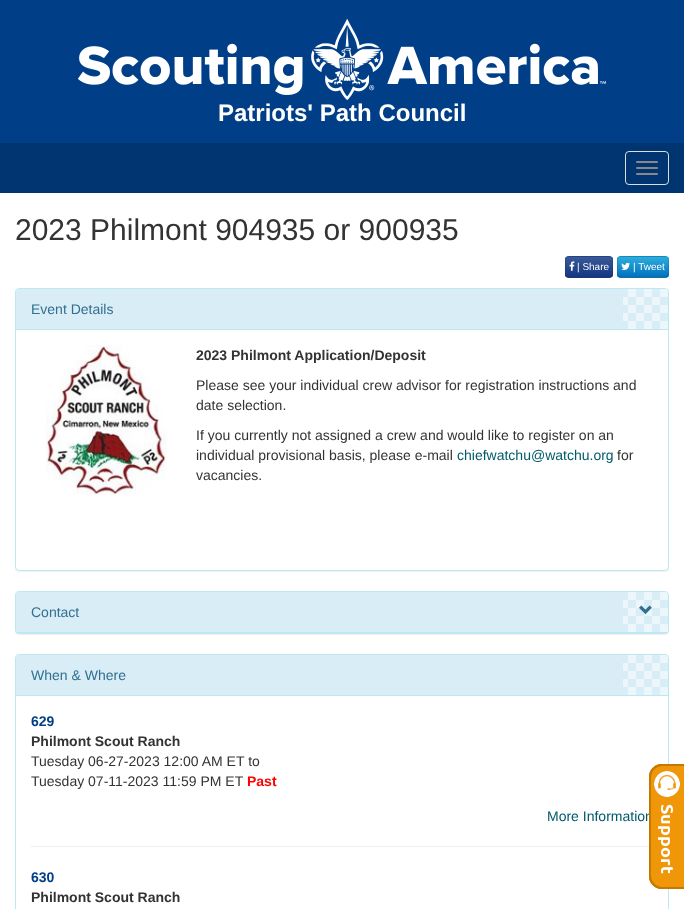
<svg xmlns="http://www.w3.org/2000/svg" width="684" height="909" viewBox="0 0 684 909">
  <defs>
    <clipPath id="clip1"><rect x="565" y="256" width="48" height="22" rx="4"/></clipPath>
    <linearGradient id="g1" gradientUnits="userSpaceOnUse" x1="589" y1="257" x2="589" y2="277"><stop offset="0" stop-color="#3b5998"/><stop offset="1" stop-color="#133783"/></linearGradient>
    <clipPath id="clip2"><rect x="617" y="256" width="52" height="22" rx="4"/></clipPath>
    <linearGradient id="g2" gradientUnits="userSpaceOnUse" x1="643" y1="257" x2="643" y2="277"><stop offset="0" stop-color="#2daddc"/><stop offset="1" stop-color="#0271bf"/></linearGradient>
    <filter id="blur1" x="-50%" y="-200%" width="200%" height="500%"><feGaussianBlur stdDeviation="0.5"/></filter>
  </defs>
  <rect width="100%" height="100%" fill="#003f87"/>
  <image x="78" y="18" width="529" height="82" href="img1.png"/>
  <text x="218" y="121" font-family="Liberation Sans" font-size="24" font-weight="bold" fill="#ffffff">Patriots' Path Council</text>
  <rect x="0" y="143" width="684" height="50" fill="#003571"/>
  <rect x="625.5" y="151.5" width="43" height="33" rx="3.5" fill="none" stroke="#dddddd"/>
  <rect x="636" y="161" width="22" height="2" rx="1" fill="#888888"/>
  <rect x="636" y="167" width="22" height="2" rx="1" fill="#888888"/>
  <rect x="636" y="173" width="22" height="2" rx="1" fill="#888888"/>
  <rect x="0" y="193" width="684" height="716" fill="#ffffff"/>
  <text x="15" y="240" font-family="Liberation Sans" font-size="30" fill="#333333">2023 Philmont 904935 or 900935</text>
  <rect x="565" y="256" width="48" height="22" rx="4" fill="#2b4b90"/>
  <g clip-path="url(#clip1)">
    <rect x="565" y="257" width="48" height="20" fill="url(#g1)"/>
  </g>
  <path d="M611.5 276.5C611 277 610 277.5 609 277.5H569C568 277.5 567 277 566.5 276.5" fill="none" stroke="#000000" stroke-opacity="0.25"/>
  <path d="M566.5 276.5C564.5 274.5 565.5 269.5 565.5 267C565.5 256 564.5 256.5 575.5 256.5H602.5C613.5 256.5 612.5 256 612.5 267C612.5 269.5 613.5 274.5 611.5 276.5" fill="none" stroke="#000000" stroke-opacity="0.1"/>
  <image x="569" y="261" width="6" height="10" href="img2.png"/>
  <text x="577" y="270" font-family="Liberation Sans" font-size="10" fill="#ffffff">| Share</text>
  <rect x="617" y="256" width="52" height="22" rx="4" fill="#1c95d0"/>
  <g clip-path="url(#clip2)">
    <rect x="617" y="257" width="52" height="20" fill="url(#g2)"/>
  </g>
  <path d="M667.5 276.5C667 277 666 277.5 665 277.5H621C620 277.5 619 277 618.5 276.5" fill="none" stroke="#000000" stroke-opacity="0.25"/>
  <path d="M618.5 276.5C616.5 274.5 617.5 269.5 617.5 267C617.5 256 616.5 256.5 628.5 256.5H657.5C669.5 256.5 668.5 256 668.5 267C668.5 269.5 669.5 274.5 667.5 276.5" fill="none" stroke="#000000" stroke-opacity="0.1"/>
  <image x="621" y="262" width="9" height="8" href="img3.png"/>
  <text x="633" y="270" font-family="Liberation Sans" font-size="10" fill="#ffffff">| Tweet</text>
  <rect x="15" y="289" width="654" height="283" rx="4" fill="#000000" fill-opacity="0.05" filter="url(#blur1)"/>
  <rect x="15.5" y="288.5" width="653" height="282" rx="3.5" fill="#ffffff" stroke="#bce8f1"/>
  <path d="M19 289H665C666.5 289 668 290.5 668 292V330H16V292C16 290.5 17.5 289 19 289Z" fill="#d9edf7"/>
  <image x="623" y="289" width="45" height="40" href="img4.png"/>
  <rect x="16" y="329" width="652" height="1" fill="#bce8f1"/>
  <text x="31" y="314" font-family="Liberation Sans" font-size="14" fill="#31708f">Event Details</text>
  <image x="46" y="345" width="121" height="150" href="img5.png"/>
  <text x="196" y="360" font-family="Liberation Sans" font-size="14" font-weight="bold" fill="#333333">2023 Philmont Application/Deposit</text>
  <text x="196" y="390" font-family="Liberation Sans" font-size="14" fill="#333333">Please see your individual crew advisor for registration instructions and</text>
  <text x="196" y="410" font-family="Liberation Sans" font-size="14" fill="#333333">date selection.</text>
  <text x="196" y="440" font-family="Liberation Sans" font-size="14" fill="#333333">If you currently not assigned a crew and would like to register on an</text>
  <text x="196" y="460" font-family="Liberation Sans" font-size="14" fill="#333333">individual provisional basis, please e-mail</text>
  <text x="457" y="460" font-family="Liberation Sans" font-size="14" fill="#005969">chiefwatchu@watchu.org</text>
  <text x="617" y="460" font-family="Liberation Sans" font-size="14" fill="#333333">for</text>
  <text x="196" y="480" font-family="Liberation Sans" font-size="14" fill="#333333">vacancies.</text>
  <rect x="15" y="592" width="654" height="43" rx="4" fill="#000000" fill-opacity="0.05" filter="url(#blur1)"/>
  <rect x="15.5" y="591.5" width="653" height="42" rx="3.5" fill="none" stroke="#bce8f1"/>
  <path d="M19 592H665C666.5 592 668 593.5 668 595V633H16V595C16 593.5 17.5 592 19 592Z" fill="#d9edf7"/>
  <image x="623" y="592" width="45" height="40" href="img4.png"/>
  <rect x="16" y="632" width="652" height="1" fill="#bce8f1"/>
  <text x="31" y="617" font-family="Liberation Sans" font-size="14" fill="#31708f">Contact</text>
  <image x="639" y="605" width="13" height="10" href="img6.png"/>
  <rect x="15.5" y="654.5" width="653" height="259" rx="3.5" fill="none" stroke="#bce8f1"/>
  <path d="M19 655H665C666.5 655 668 656.5 668 658V696H16V658C16 656.5 17.5 655 19 655Z" fill="#d9edf7"/>
  <image x="623" y="655" width="45" height="40" href="img4.png"/>
  <rect x="16" y="695" width="652" height="1" fill="#bce8f1"/>
  <text x="31" y="680" font-family="Liberation Sans" font-size="14" fill="#31708f">When &amp; Where</text>
  <text x="31" y="726" font-family="Liberation Sans" font-size="14" font-weight="bold" fill="#003f87">629</text>
  <text x="31" y="746" font-family="Liberation Sans" font-size="14" font-weight="bold" fill="#333333">Philmont Scout Ranch</text>
  <text x="31" y="766" font-family="Liberation Sans" font-size="14" fill="#333333">Tuesday 06-27-2023 12:00 AM ET to</text>
  <text x="31" y="786" font-family="Liberation Sans" font-size="14" fill="#333333">Tuesday 07-11-2023 11:59 PM ET</text>
  <text x="247" y="786" font-family="Liberation Sans" font-size="14" font-weight="bold" fill="#ff0000">Past</text>
  <text x="547" y="821" font-family="Liberation Sans" font-size="14" fill="#005969">More Information</text>
  <rect x="31" y="846" width="622" height="1" fill="#eeeeee"/>
  <text x="31" y="882" font-family="Liberation Sans" font-size="14" font-weight="bold" fill="#003f87">630</text>
  <text x="31" y="902" font-family="Liberation Sans" font-size="14" font-weight="bold" fill="#333333">Philmont Scout Ranch</text>
  <image x="649" y="764" width="35" height="125" href="img7.png"/>
</svg>
